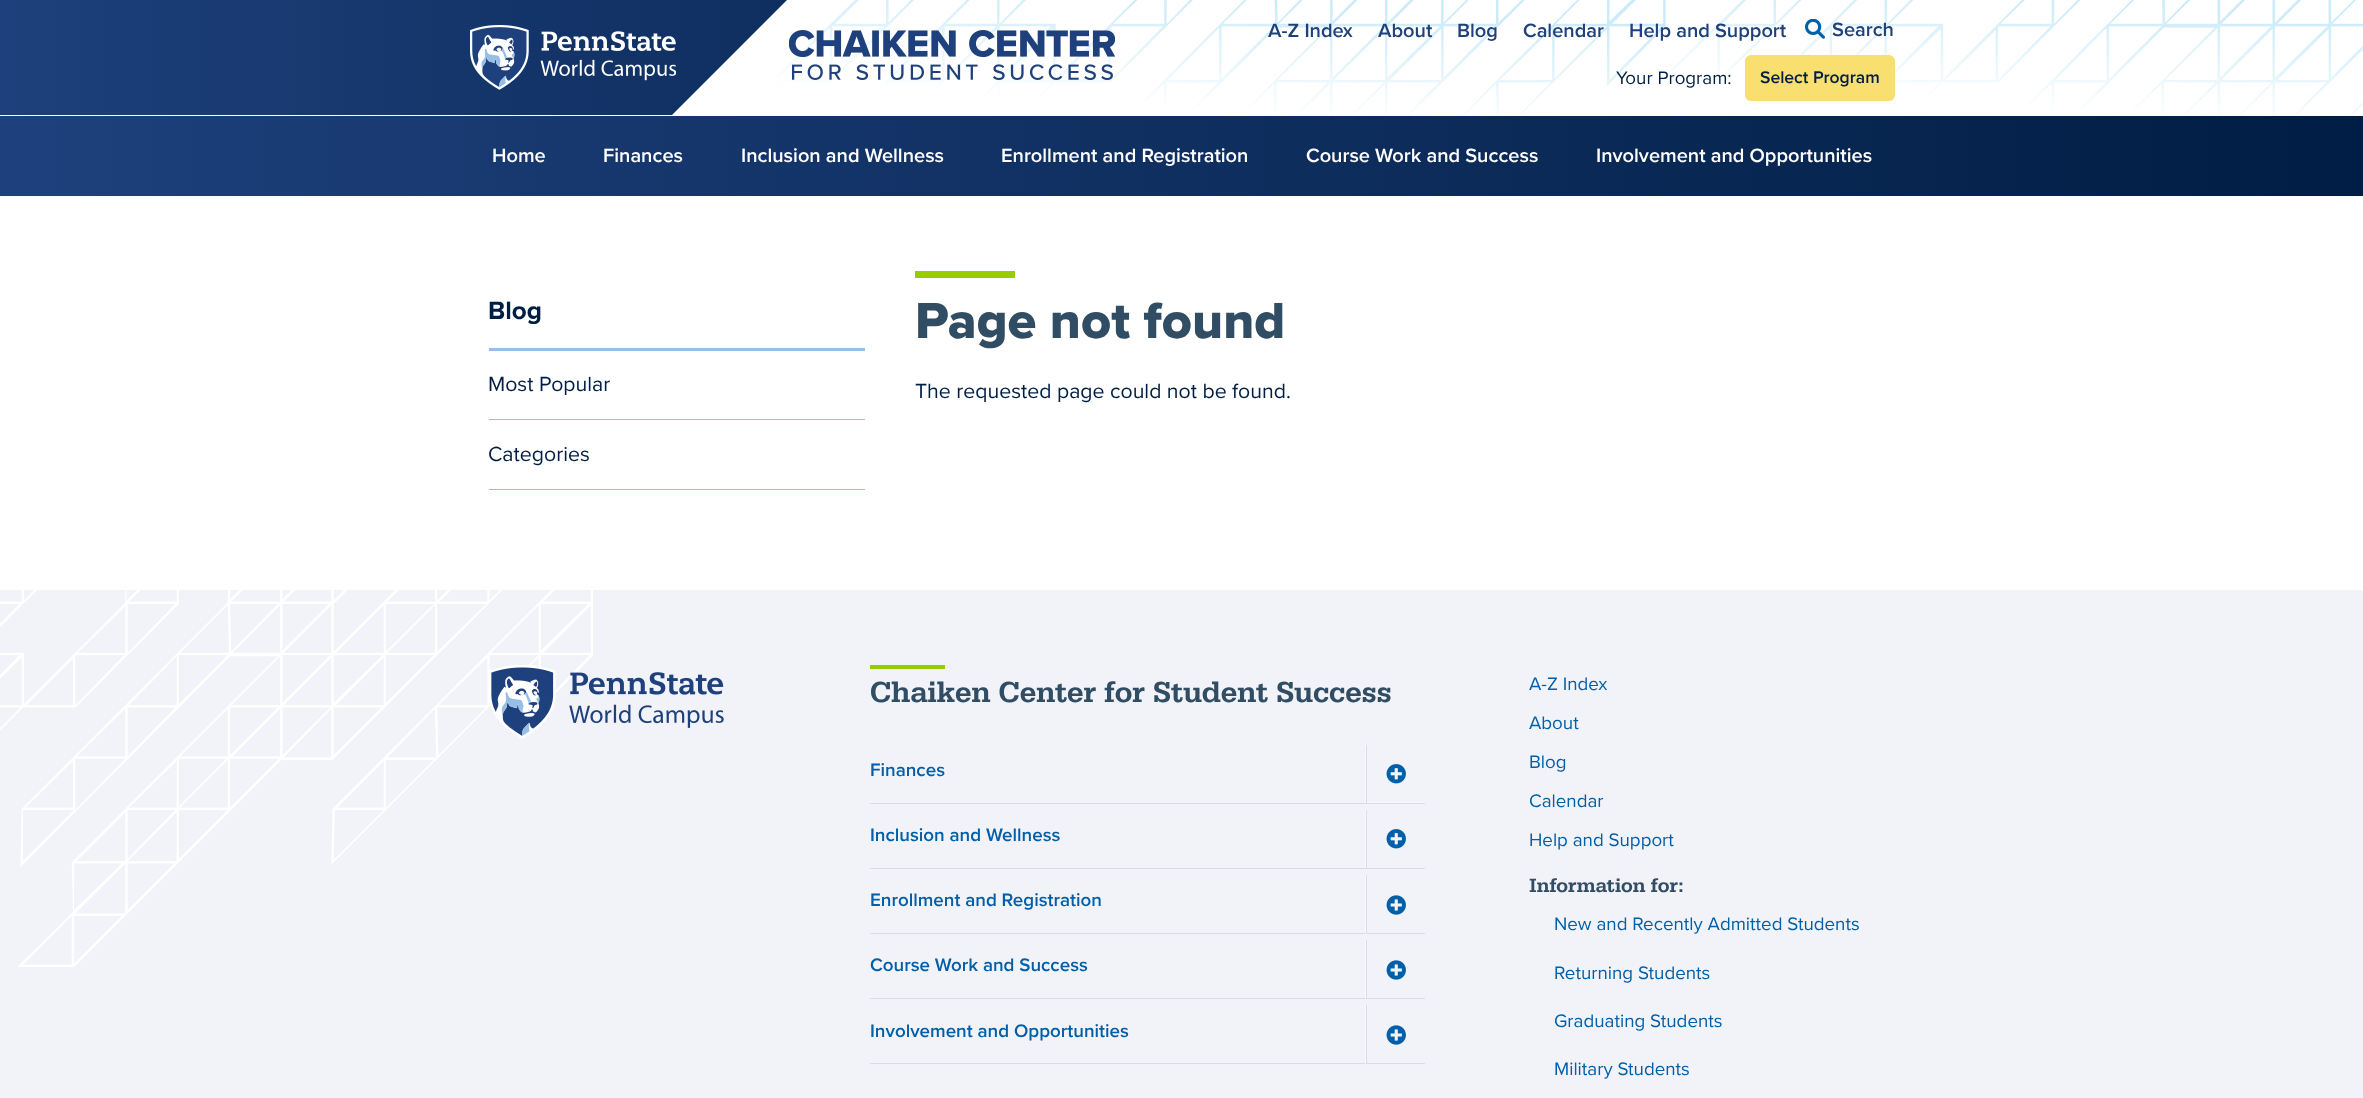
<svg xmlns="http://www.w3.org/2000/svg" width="2363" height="1098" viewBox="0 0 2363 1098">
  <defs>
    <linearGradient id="g1" gradientUnits="userSpaceOnUse" x1="-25" y1="58" x2="789" y2="57"><stop offset="0" stop-color="#1e407c"/><stop offset="1" stop-color="#0f2f60"/></linearGradient>
    <linearGradient id="g2" gradientUnits="userSpaceOnUse" x1="0" y1="156" x2="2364" y2="156"><stop offset="0" stop-color="#1e407c"/><stop offset="1" stop-color="#001e44"/></linearGradient>
  </defs>
  <rect width="100%" height="100%" fill="#ffffff"/>
  <image x="777" y="0" width="889" height="115" href="img1.png"/>
  <image x="1666" y="0" width="697" height="115" href="img2.png"/>
  <path d="M-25 0H787L672 115H-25Z" fill="url(#g1)"/>
  <image x="470" y="25" width="206" height="65" href="img3.png"/>
  <image x="789" y="30" width="326" height="50" href="img4.png"/>
  <text x="1268" y="37" font-family="Proxima Nova" font-size="20" font-weight="600" fill="#1e407c">A-Z Index</text>
  <text x="1378" y="37" font-family="Proxima Nova" font-size="20" font-weight="600" fill="#1e407c">About</text>
  <text x="1457" y="37" font-family="Proxima Nova" font-size="20" font-weight="600" fill="#1e407c">Blog</text>
  <text x="1523" y="37" font-family="Proxima Nova" font-size="20" font-weight="600" fill="#1e407c">Calendar</text>
  <text x="1629" y="37" font-family="Proxima Nova" font-size="20" font-weight="600" fill="#1e407c">Help and Support</text>
  <image x="1805" y="19" width="20" height="20" href="img5.png"/>
  <text x="1832" y="36" font-family="Proxima Nova" font-size="20" font-weight="600" fill="#1e407c">Search</text>
  <text x="1616" y="84" font-family="Proxima Nova" font-size="18.75" fill="#001e44">Your Program:</text>
  <rect x="1745" y="55" width="150" height="46" rx="6" fill="#f9df70"/>
  <text x="1760" y="83" font-family="Proxima Nova" font-size="17.5" font-weight="600" fill="#001e44">Select Program</text>
  <rect x="0" y="116" width="2363" height="80" fill="url(#g2)"/>
  <text x="492" y="162" font-family="Proxima Nova" font-size="20" font-weight="600" fill="#ffffff">Home</text>
  <text x="603" y="162" font-family="Proxima Nova" font-size="20" font-weight="600" fill="#ffffff">Finances</text>
  <text x="741" y="162" font-family="Proxima Nova" font-size="20" font-weight="600" fill="#ffffff">Inclusion and Wellness</text>
  <text x="1001" y="162" font-family="Proxima Nova" font-size="20" font-weight="600" fill="#ffffff">Enrollment and Registration</text>
  <text x="1306" y="162" font-family="Proxima Nova" font-size="20" font-weight="600" fill="#ffffff">Course Work and Success</text>
  <text x="1596" y="162" font-family="Proxima Nova" font-size="20" font-weight="600" fill="#ffffff">Involvement and Opportunities</text>
  <rect x="489" y="348" width="376" height="3" fill="#96bee6"/>
  <text x="488" y="319" font-family="Proxima Nova" font-size="26" font-weight="bold" fill="#001e44">Blog</text>
  <rect x="489" y="419" width="376" height="1" fill="#96bee6"/>
  <text x="488" y="391" font-family="Proxima Nova" font-size="21.25" fill="#001e44">Most Popular</text>
  <rect x="489" y="489" width="376" height="1" fill="#96bee6"/>
  <text x="488" y="461" font-family="Proxima Nova" font-size="21.25" fill="#001e44">Categories</text>
  <rect x="915" y="271" width="100" height="7" fill="#99cc00"/>
  <text x="915" y="338" font-family="Proxima Nova" font-size="52.5" font-weight="800" fill="#314d64">Page not found</text>
  <text x="915" y="398" font-family="Proxima Nova" font-size="21.25" fill="#001e44">The requested page could not be found.</text>
  <rect x="0" y="590" width="2363" height="508" fill="#f2f3f9"/>
  <image x="0" y="590" width="593" height="377" href="img6.png"/>
  <image x="489" y="665" width="235" height="74" href="img7.png"/>
  <rect x="870" y="665" width="75" height="4" fill="#99cc00"/>
  <text x="870" y="702" font-family="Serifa" font-size="30" font-weight="500" fill="#314d64">Chaiken Center for Student Success</text>
  <rect x="870" y="803" width="555" height="1" fill="#d8dbea"/>
  <text x="870" y="776" font-family="Proxima Nova" font-size="18.75" font-weight="600" fill="#005fa9">Finances</text>
  <path d="M1365 745V803H1424V802H1366V745Z" fill="#f9f9fc"/>
  <rect x="1366" y="745" width="1" height="58" fill="#d8dbea"/>
  <image x="1386" y="764" width="20" height="20" href="img8.png"/>
  <rect x="870" y="868" width="555" height="1" fill="#d8dbea"/>
  <text x="870" y="841" font-family="Proxima Nova" font-size="18.75" font-weight="600" fill="#005fa9">Inclusion and Wellness</text>
  <path d="M1365 810V868H1424H1366V810Z" fill="#f9f9fc"/>
  <rect x="1366" y="810" width="1" height="58" fill="#d8dbea"/>
  <image x="1386" y="829" width="20" height="20" href="img8.png"/>
  <rect x="870" y="933" width="555" height="1" fill="#d8dbea"/>
  <text x="870" y="906" font-family="Proxima Nova" font-size="18.75" font-weight="600" fill="#005fa9">Enrollment and Registration</text>
  <path d="M1365 875V934H1424H1366V875Z" fill="#ffffff" fill-opacity="0.5"/>
  <rect x="1366" y="875" width="1" height="59" fill="#d8dbea"/>
  <image x="1386" y="895" width="20" height="20" href="img9.png"/>
  <rect x="870" y="998" width="555" height="1" fill="#d8dbea"/>
  <text x="870" y="971" font-family="Proxima Nova" font-size="18.75" font-weight="600" fill="#005fa9">Course Work and Success</text>
  <path d="M1365 940V999H1424H1366V940Z" fill="#ffffff" fill-opacity="0.5"/>
  <rect x="1366" y="940" width="1" height="59" fill="#d8dbea"/>
  <image x="1386" y="960" width="20" height="20" href="img9.png"/>
  <rect x="870" y="1063" width="555" height="1" fill="#d8dbea"/>
  <text x="870" y="1037" font-family="Proxima Nova" font-size="18.75" font-weight="600" fill="#005fa9">Involvement and Opportunities</text>
  <path d="M1365 1005V1064H1424H1366V1005Z" fill="#ffffff" fill-opacity="0.5"/>
  <rect x="1366" y="1005" width="1" height="59" fill="#d8dbea"/>
  <image x="1386" y="1025" width="20" height="20" href="img9.png"/>
  <text x="1529" y="690" font-family="Proxima Nova" font-size="18.75" fill="#005fa9">A-Z Index</text>
  <text x="1529" y="729" font-family="Proxima Nova" font-size="18.75" fill="#005fa9">About</text>
  <text x="1529" y="768" font-family="Proxima Nova" font-size="18.75" fill="#005fa9">Blog</text>
  <text x="1529" y="807" font-family="Proxima Nova" font-size="18.75" fill="#005fa9">Calendar</text>
  <text x="1529" y="846" font-family="Proxima Nova" font-size="18.75" fill="#005fa9">Help and Support</text>
  <text x="1529" y="892" font-family="Serifa" font-size="20" font-weight="500" fill="#314d64">Information for:</text>
  <text x="1554" y="930" font-family="Proxima Nova" font-size="18.75" fill="#005fa9">New and Recently Admitted Students</text>
  <text x="1554" y="979" font-family="Proxima Nova" font-size="18.75" fill="#005fa9">Returning Students</text>
  <text x="1554" y="1027" font-family="Proxima Nova" font-size="18.75" fill="#005fa9">Graduating Students</text>
  <text x="1554" y="1075" font-family="Proxima Nova" font-size="18.75" fill="#005fa9">Military Students</text>
</svg>
